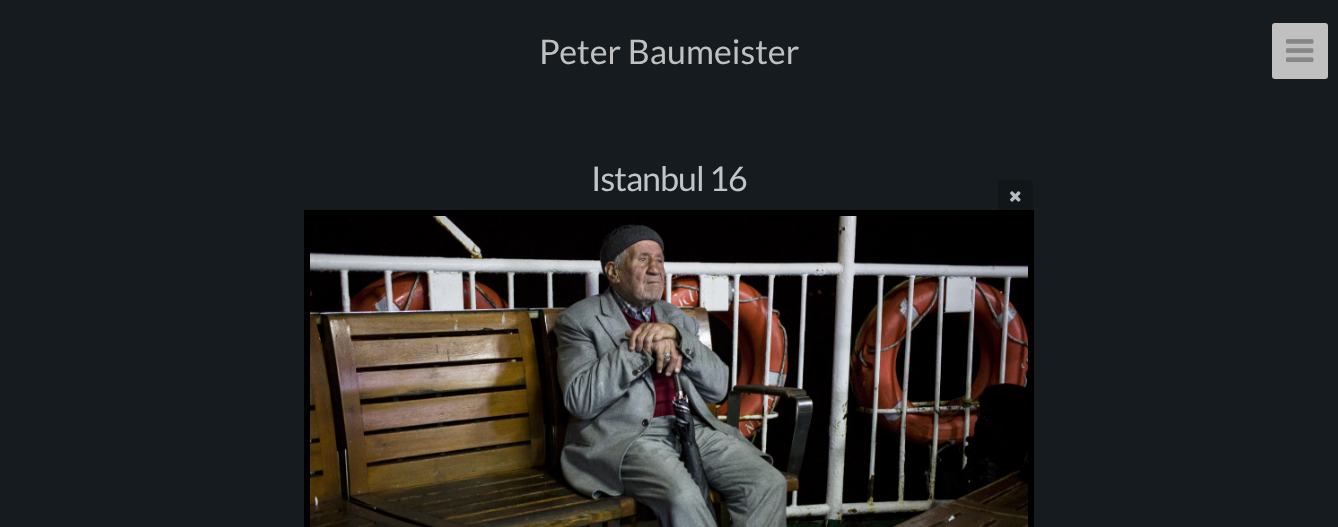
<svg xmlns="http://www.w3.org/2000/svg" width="1338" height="527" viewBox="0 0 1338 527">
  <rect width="100%" height="100%" fill="#151b1e"/>
  <text x="539" y="64" font-family="Lato" font-size="34" fill="#c0c0c0">Peter Baumeister</text>
  <text x="591" y="191" font-family="Lato" font-size="34" letter-spacing="-1" fill="#bfc6cb">Istanbul 16</text>
  <path d="M1001 180H1030C1031.5 180 1033 181.5 1033 183V210H998V183C998 181.5 999.5 180 1001 180Z" fill="#111618"/>
  <image x="1010" y="191" width="11" height="11" href="img1.png"/>
  <rect x="304" y="210" width="730" height="317" fill="#000000"/>
  <image x="310" y="216" width="718" height="311" href="img2.png"/>
  <rect x="1272" y="23" width="56" height="56" rx="3" fill="#c0c0c0"/>
  <image x="1286" y="39" width="28" height="23" href="img3.png"/>
</svg>
